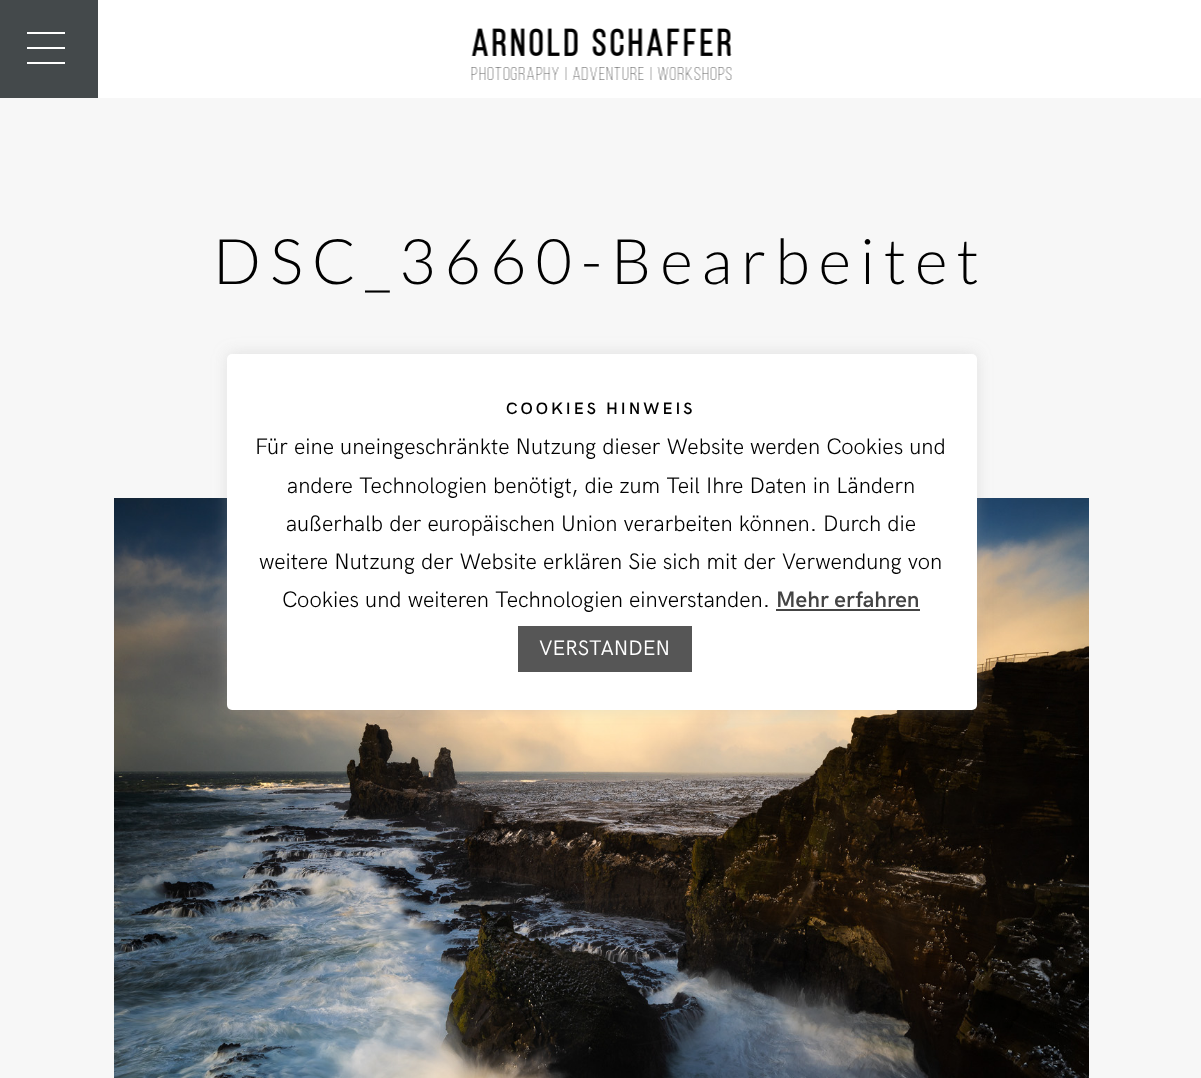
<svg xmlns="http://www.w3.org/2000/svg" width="1201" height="1078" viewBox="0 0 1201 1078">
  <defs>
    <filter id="blur1" x="-50%" y="-200%" width="200%" height="500%"><feGaussianBlur stdDeviation="7.5"/></filter>
  </defs>
  <rect width="100%" height="100%" fill="#f7f7f7"/>
  <rect x="0" y="0" width="98" height="98" fill="#44494b"/>
  <rect x="27" y="47" width="38" height="2" fill="#ffffff"/>
  <rect x="27" y="32" width="38" height="2" fill="#ffffff"/>
  <rect x="27" y="62" width="38" height="2" fill="#ffffff"/>
  <rect x="98" y="0" width="1103" height="98" fill="#ffffff"/>
  <image x="471" y="28" width="261" height="52" href="img1.png"/>
  <text x="213" y="284" font-family="Lato" font-size="63" font-weight="300" letter-spacing="9" fill="#000000">DSC_3660-Bearbeitet</text>
  <image x="114" y="498" width="975" height="580" href="img2.png"/>
  <rect x="227" y="353" width="750" height="355" rx="5" fill="#acabab" fill-opacity="0.3" filter="url(#blur1)"/>
  <rect x="227" y="354" width="750" height="356" rx="5" fill="#ffffff"/>
  <text x="506" y="414" font-family="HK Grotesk" font-size="16.5" font-weight="600" letter-spacing="3" fill="#000000">COOKIES HINWEIS</text>
  <text x="255" y="454" font-family="HK Grotesk" font-size="22.5" font-weight="300" fill="#000000">Für eine uneingeschränkte Nutzung dieser Website werden Cookies und</text>
  <text x="287" y="493" font-family="HK Grotesk" font-size="22.5" font-weight="300" fill="#000000">andere Technologien benötigt, die zum Teil Ihre Daten in Ländern</text>
  <text x="286" y="531" font-family="HK Grotesk" font-size="22.5" font-weight="300" fill="#000000">außerhalb der europäischen Union verarbeiten können. Durch die</text>
  <text x="259" y="569" font-family="HK Grotesk" font-size="22.5" font-weight="300" fill="#000000">weitere Nutzung der Website erklären Sie sich mit der Verwendung von</text>
  <text x="282" y="607" font-family="HK Grotesk" font-size="22.5" font-weight="300" fill="#000000">Cookies und weiteren Technologien einverstanden.</text>
  <text x="776" y="607" font-family="HK Grotesk" font-size="22.5" font-weight="600" fill="#444444">Mehr erfahren</text>
  <rect x="776" y="609" width="144" height="2" fill="#444444"/>
  <rect x="518" y="626" width="174" height="46" fill="#565656"/>
  <text x="539" y="655" font-family="HK Grotesk" font-size="21" fill="#ffffff">VERSTANDEN</text>
</svg>
